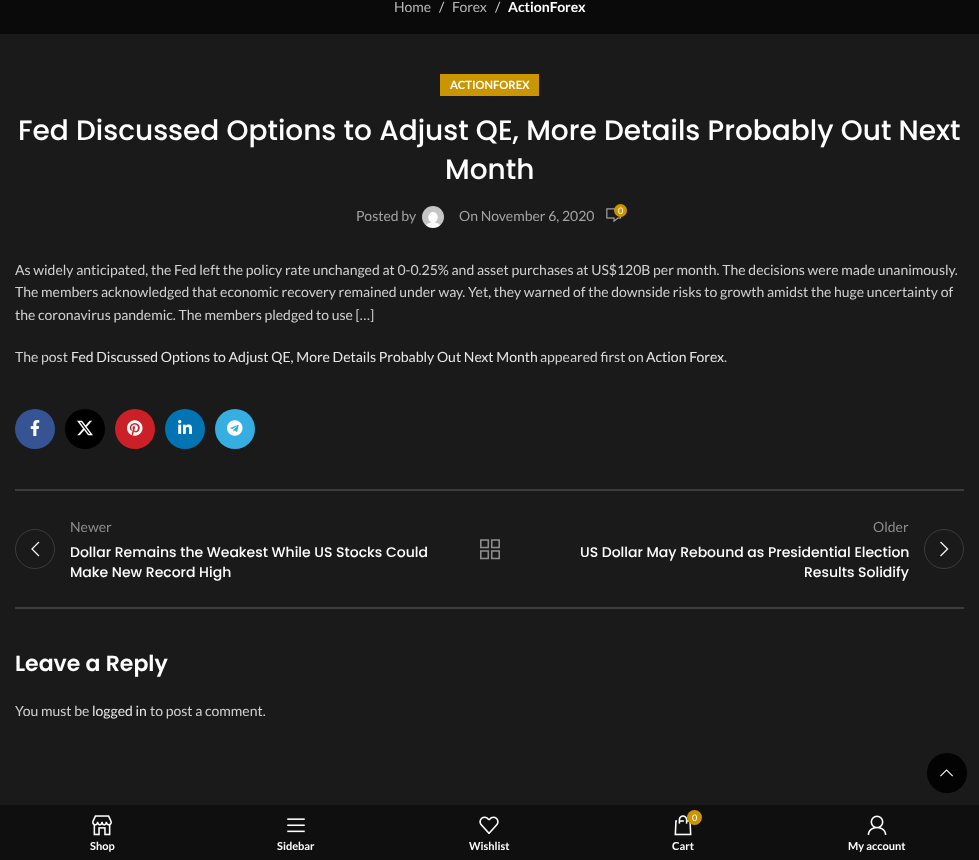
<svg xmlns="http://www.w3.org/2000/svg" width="979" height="860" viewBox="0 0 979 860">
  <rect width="100%" height="100%" fill="#1a1a1a"/>
  <rect x="0" y="0" width="979" height="34" fill="#0a0a0a"/>
  <text x="394" y="12" font-family="Lato" font-size="14" fill="#b6b6b6">Home</text>
  <text x="439" y="12" font-family="Lato" font-size="14" fill="#d1d1d1">/</text>
  <text x="452" y="12" font-family="Lato" font-size="14" fill="#b6b6b6">Forex</text>
  <text x="495" y="12" font-family="Lato" font-size="14" fill="#d1d1d1">/</text>
  <text x="508" y="12" font-family="Lato" font-size="14" font-weight="bold" fill="#ffffff">ActionForex</text>
  <rect x="440" y="74" width="99" height="22" fill="#cb9500"/>
  <text x="450" y="89" font-family="Lato" font-size="11.25" font-weight="bold" fill="#ffffff">ACTIONFOREX</text>
  <text x="18" y="140" font-family="Poppins" font-size="28" font-weight="500" fill="#ffffff">Fed Discussed Options to Adjust QE, More Details Probably Out Next</text>
  <text x="445" y="179" font-family="Poppins" font-size="28" font-weight="500" fill="#ffffff">Month</text>
  <text x="356" y="221" font-family="Lato" font-size="14" fill="#a3a3a3">Posted by</text>
  <image x="422" y="206" width="22" height="22" href="img1.png"/>
  <text x="459" y="221" font-family="Lato" font-size="14" fill="#a3a3a3">On November 6, 2020</text>
  <image x="606" y="208" width="16" height="15" href="img2.png"/>
  <circle cx="620.5" cy="210.5" r="6.5" fill="#cb9500"/>
  <text x="618" y="214" font-family="Lato" font-size="9" fill="#ffffff">0</text>
  <text x="15" y="275" font-family="Lato" font-size="14" fill="#d1d1d1">As widely anticipated, the Fed left the policy rate unchanged at 0-0.25% and asset purchases at US$120B per month. The decisions were made unanimously.</text>
  <text x="15" y="297" font-family="Lato" font-size="14" fill="#d1d1d1">The members acknowledged that economic recovery remained under way. Yet, they warned of the downside risks to growth amidst the huge uncertainty of</text>
  <text x="15" y="320" font-family="Lato" font-size="14" fill="#d1d1d1">the coronavirus pandemic. The members pledged to use […]</text>
  <text x="15" y="362" font-family="Lato" font-size="14" fill="#d1d1d1">The post</text>
  <text x="71" y="362" font-family="Lato" font-size="14" fill="#e8e8e8">Fed Discussed Options to Adjust QE, More Details Probably Out Next Month</text>
  <text x="540" y="362" font-family="Lato" font-size="14" fill="#d1d1d1">appeared first on</text>
  <text x="646" y="362" font-family="Lato" font-size="14" fill="#e8e8e8">Action Forex</text>
  <text x="724" y="362" font-family="Lato" font-size="14" fill="#d1d1d1">.</text>
  <circle cx="35" cy="429" r="20" fill="#365493"/>
  <image x="30" y="420" width="10" height="16" href="img3.png"/>
  <circle cx="85" cy="429" r="20" fill="#000000"/>
  <image x="77" y="420" width="16" height="16" href="img4.png"/>
  <circle cx="135" cy="429" r="20" fill="#cb2027"/>
  <image x="127" y="420" width="16" height="16" href="img5.png"/>
  <circle cx="185" cy="429" r="20" fill="#0274b3"/>
  <image x="178" y="420" width="14" height="14" href="img6.png"/>
  <circle cx="235" cy="429" r="20" fill="#37aee2"/>
  <image x="227" y="420" width="16" height="16" href="img7.png"/>
  <rect x="15" y="489" width="949" height="2" fill="#3c3c3c"/>
  <rect x="15" y="607" width="949" height="2" fill="#3c3c3c"/>
  <text x="70" y="532" font-family="Lato" font-size="14" fill="#8d8d8d">Newer</text>
  <circle cx="35" cy="549" r="19.5" fill="none" stroke="#3c3c3c"/>
  <image x="31" y="541" width="9" height="16" href="img8.png"/>
  <text x="70" y="557" font-family="Poppins" font-size="14" font-weight="500" fill="#ffffff">Dollar Remains the Weakest While US Stocks Could</text>
  <text x="70" y="577" font-family="Poppins" font-size="14" font-weight="500" fill="#ffffff">Make New Record High</text>
  <image x="480" y="539" width="20" height="21" href="img9.png"/>
  <text x="873" y="532" font-family="Lato" font-size="14" fill="#8d8d8d">Older</text>
  <text x="580" y="557" font-family="Poppins" font-size="14" font-weight="500" fill="#ffffff">US Dollar May Rebound as Presidential Election</text>
  <text x="804" y="577" font-family="Poppins" font-size="14" font-weight="500" fill="#ffffff">Results Solidify</text>
  <circle cx="944" cy="549" r="19.5" fill="none" stroke="#3c3c3c"/>
  <image x="940" y="541" width="9" height="16" href="img10.png"/>
  <text x="15" y="671" font-family="Poppins" font-size="22" font-weight="600" fill="#ffffff">Leave a Reply</text>
  <text x="15" y="716" font-family="Lato" font-size="14" fill="#d1d1d1">You must be</text>
  <text x="92" y="716" font-family="Lato" font-size="14" fill="#e8e8e8">logged in</text>
  <text x="150" y="716" font-family="Lato" font-size="14" fill="#d1d1d1">to post a comment.</text>
  <circle cx="947" cy="773" r="20" fill="#030303"/>
  <image x="940" y="769" width="13" height="8" href="img11.png"/>
  <rect x="0" y="805" width="979" height="55" fill="#0f0f0f"/>
  <image x="92" y="815" width="20" height="21" href="img12.png"/>
  <text x="90" y="850" font-family="Lato" font-size="11" font-weight="bold" fill="#ffffff">Shop</text>
  <image x="287" y="818" width="18" height="15" href="img13.png"/>
  <text x="277" y="850" font-family="Lato" font-size="11" font-weight="bold" fill="#ffffff">Sidebar</text>
  <image x="479" y="816" width="20" height="18" href="img14.png"/>
  <text x="469" y="850" font-family="Lato" font-size="11" font-weight="bold" fill="#ffffff">Wishlist</text>
  <image x="674" y="815" width="18" height="21" href="img15.png"/>
  <circle cx="694.5" cy="817.5" r="7.5" fill="#cb9500"/>
  <text x="692" y="821" font-family="Lato" font-size="9" fill="#ffffff">0</text>
  <text x="672" y="850" font-family="Lato" font-size="11" font-weight="bold" fill="#ffffff">Cart</text>
  <image x="867" y="815" width="20" height="20" href="img16.png"/>
  <text x="848" y="850" font-family="Lato" font-size="11" font-weight="bold" fill="#ffffff">My account</text>
</svg>
